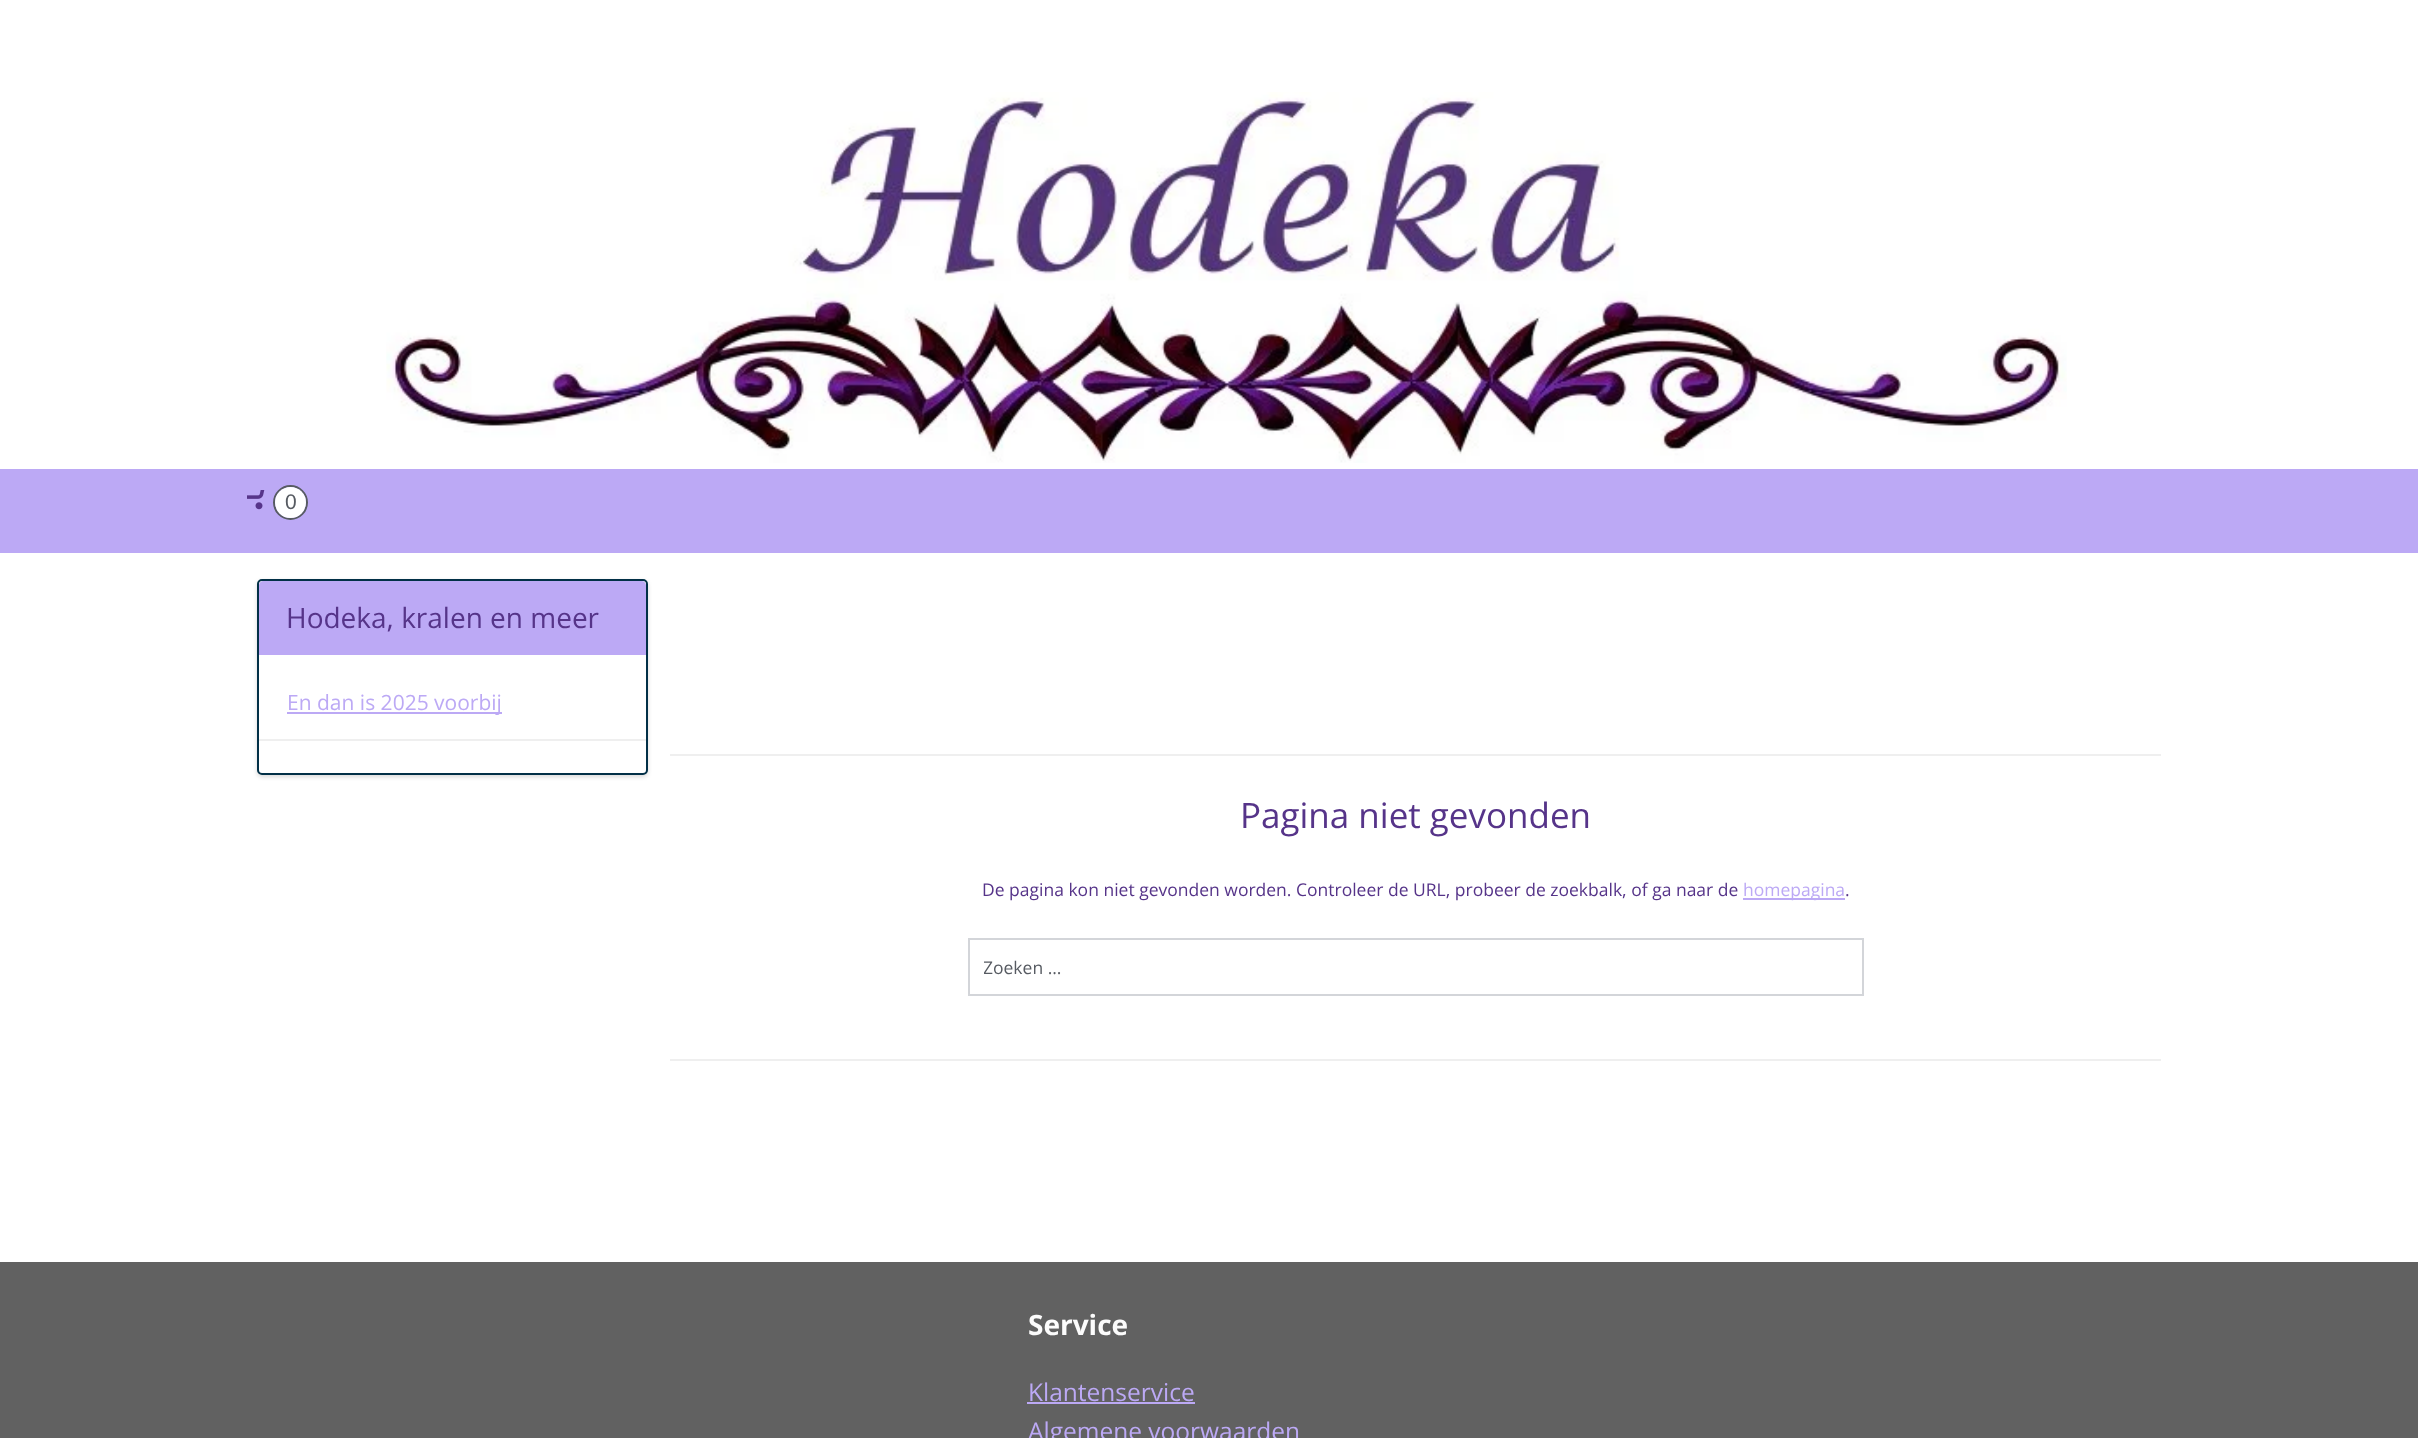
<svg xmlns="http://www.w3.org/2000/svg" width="2418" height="1438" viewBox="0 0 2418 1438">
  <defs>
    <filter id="blur1" x="-50%" y="-200%" width="200%" height="500%"><feGaussianBlur stdDeviation="2"/></filter>
    <clipPath id="clip1"><rect x="984" y="956" width="864" height="24"/></clipPath>
  </defs>
  <rect width="100%" height="100%" fill="#616161"/>
  <rect x="0" y="0" width="2418" height="1262" fill="#ffffff"/>
  <image x="386" y="92" width="1681" height="371" href="img1.png"/>
  <rect x="0" y="469" width="2418" height="84" fill="#bca9f5"/>
  <image x="247" y="490" width="18" height="20" href="img2.png"/>
  <circle cx="290.5" cy="502.5" r="16.5" fill="none" stroke="#575b62" stroke-width="2"/>
  <circle cx="290.5" cy="502.5" r="15.5" fill="#ffffff"/>
  <text x="285" y="509" font-family="Liberation Sans" font-size="21" fill="#575b62">0</text>
  <rect x="257" y="581" width="391" height="196" rx="5" fill="#000000" fill-opacity="0.15" filter="url(#blur1)"/>
  <rect x="258" y="580" width="389" height="194" rx="4" fill="#ffffff" stroke="#023047" stroke-width="2"/>
  <path d="M263 581H642C644 581 646 583 646 585V655H259V585C259 583 261 581 263 581Z" fill="#bca9f5"/>
  <text x="286" y="628" font-family="Open Sans" font-size="28" fill="#563489">Hodeka, kralen en meer</text>
  <rect x="287" y="712" width="215" height="2" fill="#bca9f5"/>
  <text x="287" y="710" font-family="Open Sans" font-size="21" fill="#bca9f5">En dan is 2025 voorbij</text>
  <rect x="259" y="739" width="387" height="2" fill="#efefef"/>
  <rect x="670" y="754" width="1491" height="2" fill="#efefef"/>
  <rect x="670" y="1059" width="1491" height="2" fill="#efefef"/>
  <text x="1240" y="828" font-family="Open Sans" font-size="35" fill="#563489">Pagina niet gevonden</text>
  <text x="982" y="896" font-family="Open Sans" font-size="17.5" fill="#563489">De pagina kon niet gevonden worden. Controleer de URL, probeer de zoekbalk, of ga naar de</text>
  <rect x="1743" y="898" width="102" height="2" fill="#bca9f5"/>
  <text x="1743" y="896" font-family="Open Sans" font-size="17.5" fill="#bca9f5">homepagina</text>
  <text x="1845" y="896" font-family="Open Sans" font-size="17.5" fill="#563489">.</text>
  <rect x="969" y="939" width="894" height="56" fill="none" stroke="#d3d5d9" stroke-width="2"/>
  <g clip-path="url(#clip1)">
    <text x="983" y="974" font-family="Open Sans" font-size="17.5" fill="#575b62">Zoeken ...</text>
  </g>
  <text x="1028" y="1335" font-family="Open Sans" font-size="28" font-weight="bold" fill="#fcfcfc">Service</text>
  <text x="1028" y="1401" font-family="Open Sans" font-size="24.5" fill="#bca9f5">Klantenservice</text>
  <rect x="1027" y="1402" width="168" height="2" fill="#bca9f5"/>
  <text x="1028" y="1440" font-family="Open Sans" font-size="24.5" fill="#bca9f5">Algemene voorwaarden</text>
</svg>
